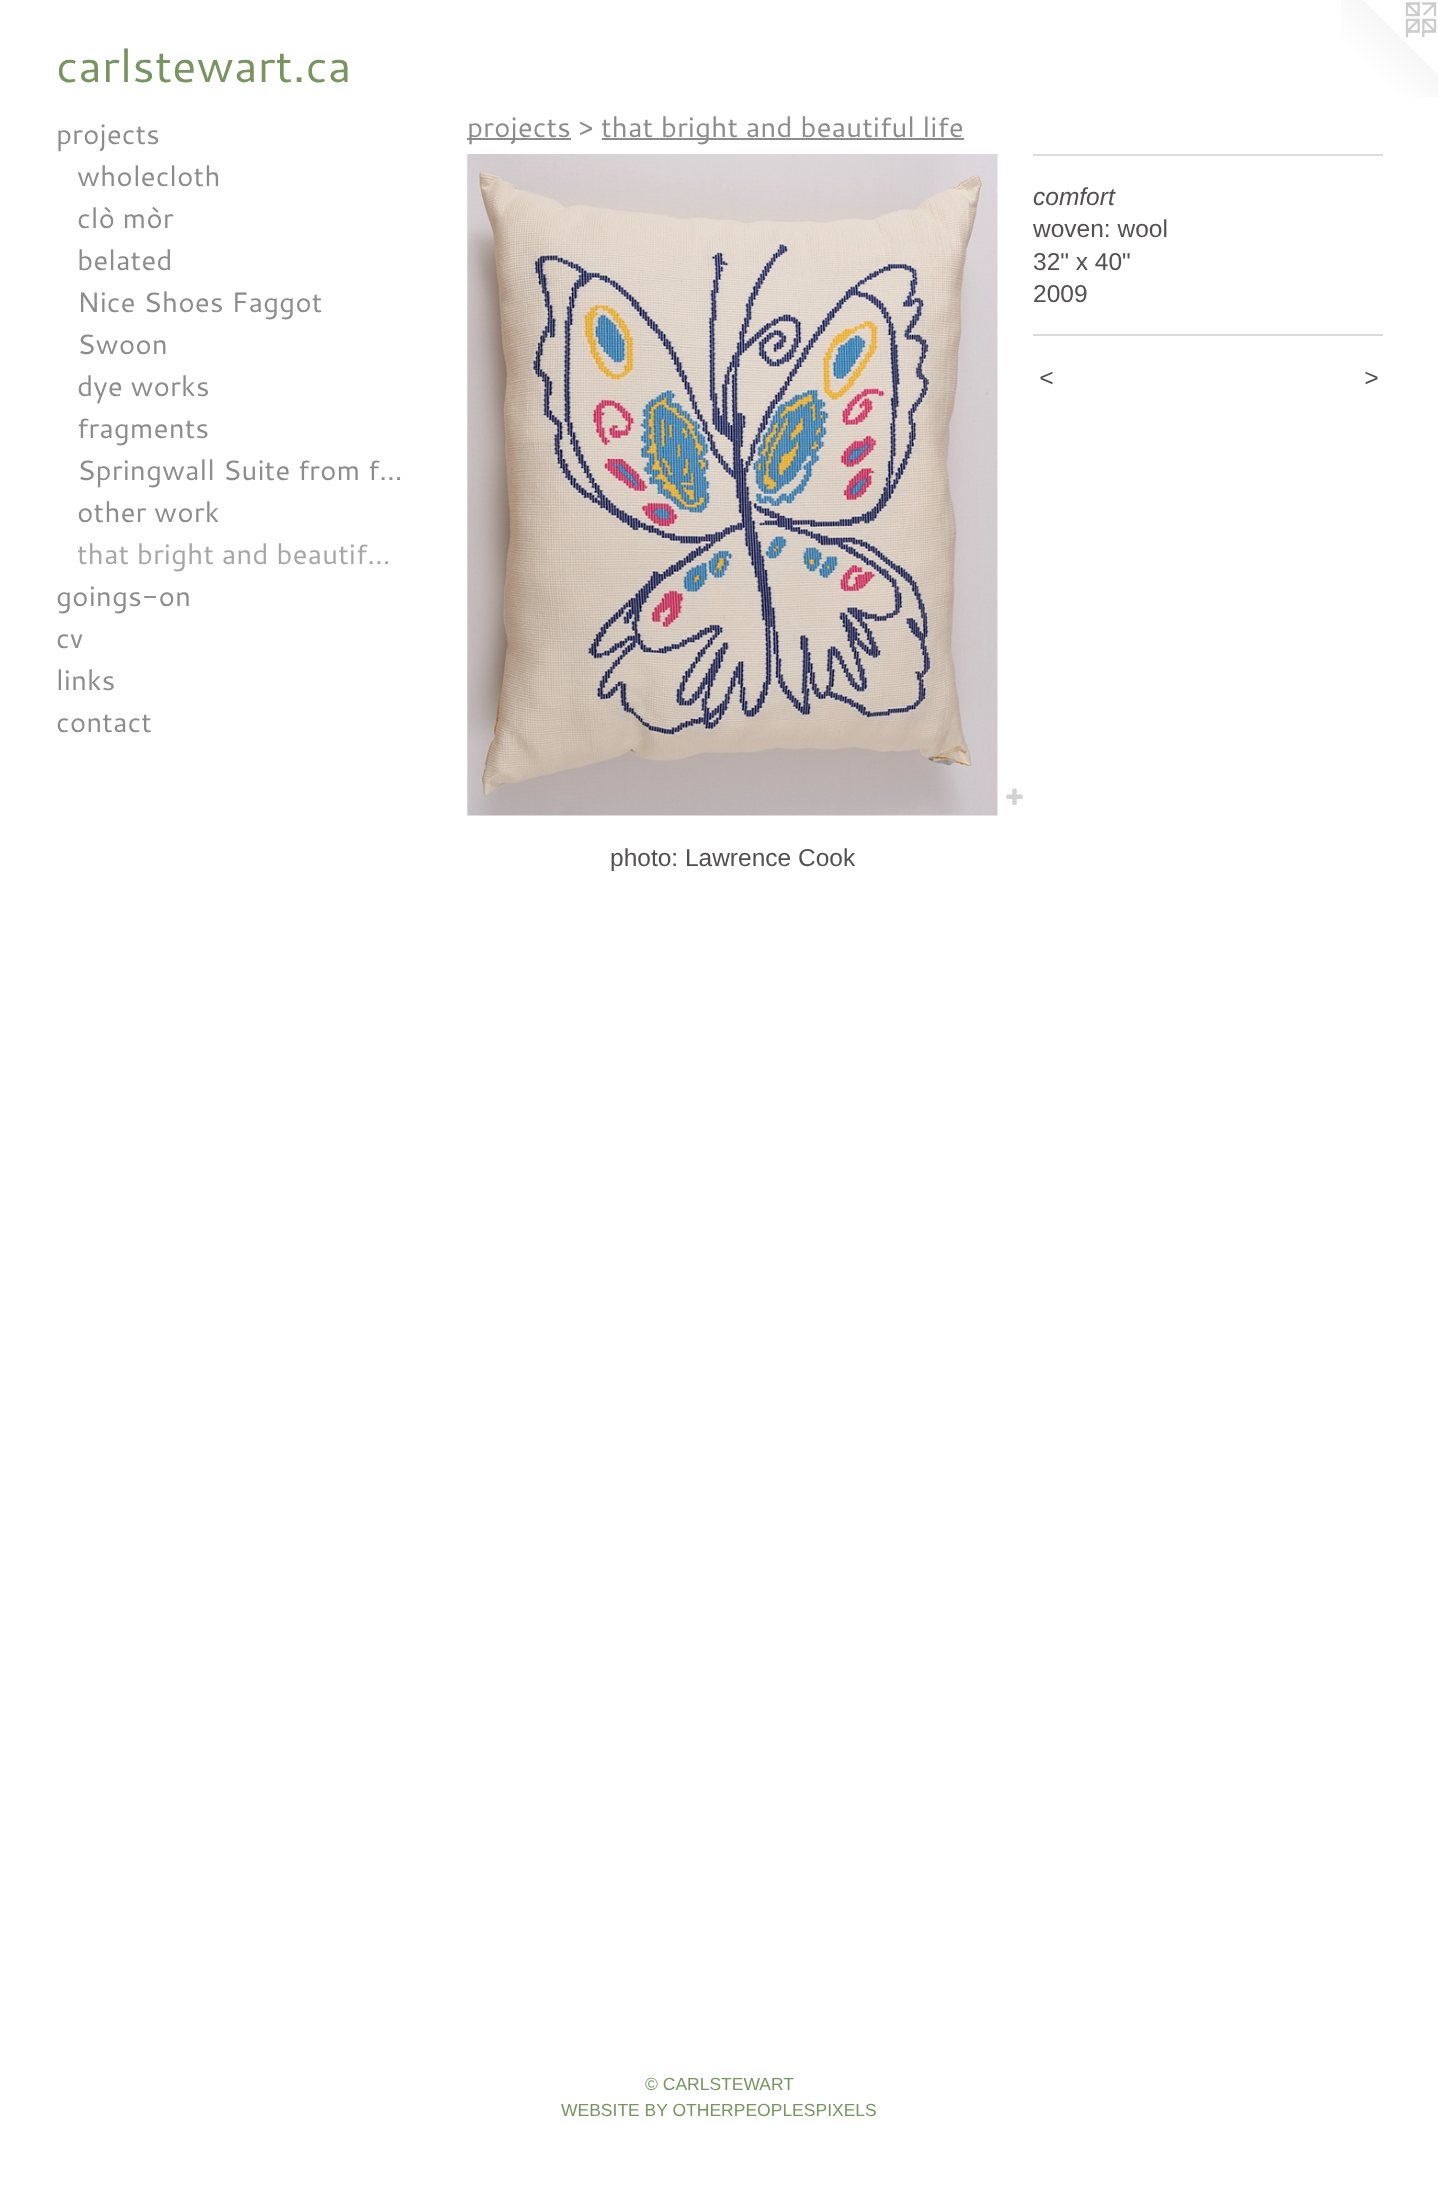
<svg xmlns="http://www.w3.org/2000/svg" width="1438" height="2209" viewBox="0 0 1438 2209">
  <rect width="100%" height="100%" fill="#ffffff"/>
  <text x="56" y="82" font-family="Cantarell" font-size="45.5" fill="#789461">carlstewart.ca</text>
  <image x="1341" y="0" width="97" height="97" href="img1.png"/>
  <text x="56" y="144" font-family="Cantarell" font-size="28" fill="#8c8c8c">projects</text>
  <text x="77" y="186" font-family="Cantarell" font-size="28" fill="#8c8c8c">wholecloth</text>
  <text x="77" y="228" font-family="Cantarell" font-size="28" fill="#8c8c8c">clò mòr</text>
  <text x="77" y="270" font-family="Cantarell" font-size="28" fill="#8c8c8c">belated</text>
  <text x="77" y="312" font-family="Cantarell" font-size="28" fill="#8c8c8c">Nice Shoes Faggot</text>
  <text x="77" y="354" font-family="Cantarell" font-size="28" fill="#8c8c8c">Swoon</text>
  <text x="77" y="396" font-family="Cantarell" font-size="28" fill="#8c8c8c">dye works</text>
  <text x="77" y="438" font-family="Cantarell" font-size="28" fill="#8c8c8c">fragments</text>
  <text x="77" y="480" font-family="Cantarell" font-size="28" fill="#8c8c8c">Springwall Suite from f…</text>
  <text x="77" y="522" font-family="Cantarell" font-size="28" fill="#8c8c8c">other work</text>
  <text x="77" y="564" font-family="Cantarell" font-size="28" fill="#a6a6a6">that bright and beautif…</text>
  <text x="56" y="606" font-family="Cantarell" font-size="28" fill="#8c8c8c">goings-on</text>
  <text x="56" y="648" font-family="Cantarell" font-size="28" fill="#8c8c8c">cv</text>
  <text x="56" y="690" font-family="Cantarell" font-size="28" fill="#8c8c8c">links</text>
  <text x="56" y="732" font-family="Cantarell" font-size="28" fill="#8c8c8c">contact</text>
  <rect x="467" y="138" width="104" height="2" fill="#8c8c8c"/>
  <text x="467" y="137" font-family="Cantarell" font-size="28" fill="#8c8c8c">projects &gt;</text>
  <rect x="602" y="138" width="362" height="2" fill="#8c8c8c"/>
  <text x="601" y="137" font-family="Cantarell" font-size="28" fill="#8c8c8c">that bright and beautiful life</text>
  <image x="467" y="154" width="531" height="662" href="img2.png"/>
  <image x="1006" y="788" width="17" height="17" href="img3.png"/>
  <rect x="1033" y="154" width="350" height="2" fill="#dddcdc"/>
  <text x="1033" y="205" font-family="Liberation Sans" font-size="24.5" font-style="italic" fill="#535050">comfort</text>
  <text x="1033" y="237" font-family="Liberation Sans" font-size="24.5" fill="#535050">woven: wool</text>
  <text x="1033" y="270" font-family="Liberation Sans" font-size="24.5" fill="#535050">32" x 40"</text>
  <text x="1033" y="302" font-family="Liberation Sans" font-size="24.5" fill="#535050">2009</text>
  <rect x="1033" y="334" width="350" height="2" fill="#dddcdc"/>
  <text x="1039" y="386" font-family="Liberation Sans" font-size="24.5" font-style="italic" letter-spacing="2" fill="#535050">&lt;</text>
  <text x="1364" y="386" font-family="Liberation Sans" font-size="24.5" font-style="italic" letter-spacing="2" fill="#535050">&gt;</text>
  <text x="610" y="866" font-family="Liberation Sans" font-size="24.5" fill="#535050">photo: Lawrence Cook</text>
  <text x="645" y="2090" font-family="Liberation Sans" font-size="17.5" fill="#789461">© CARLSTEWART</text>
  <text x="561" y="2116" font-family="Liberation Sans" font-size="17.5" fill="#789461">WEBSITE BY OTHERPEOPLESPIXELS</text>
</svg>
